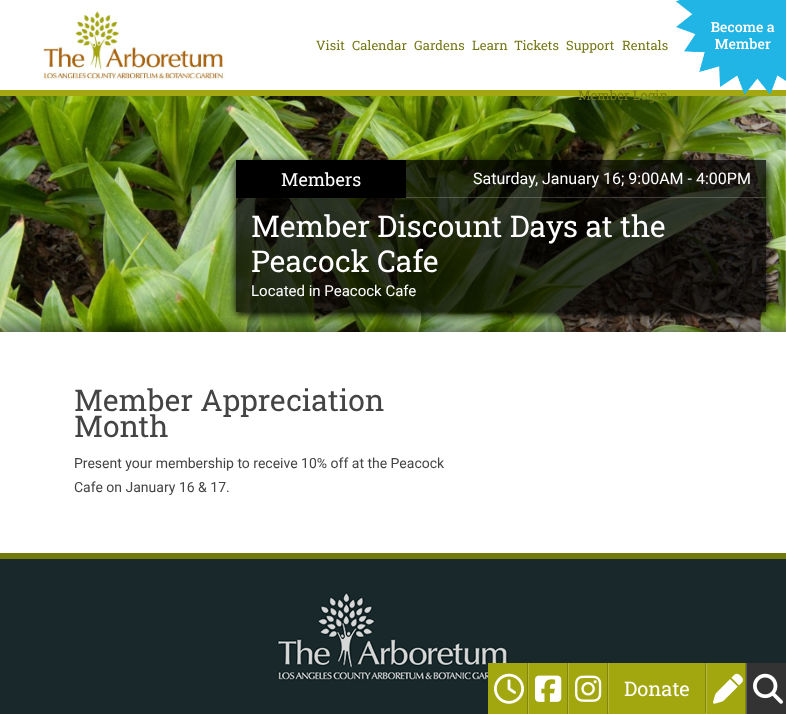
<svg xmlns="http://www.w3.org/2000/svg" width="786" height="714" viewBox="0 0 786 714">
  <defs>
    <clipPath id="clip1"><path d="M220 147H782V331H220ZM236 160H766V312H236Z" clip-rule="evenodd"/></clipPath>
    <filter id="blur1" x="-50%" y="-200%" width="200%" height="500%"><feGaussianBlur stdDeviation="5"/></filter>
  </defs>
  <rect width="100%" height="100%" fill="#ffffff"/>
  <rect x="0" y="90" width="786" height="6" fill="#a3a810"/>
  <image x="42" y="11" width="183" height="69" href="img1.png"/>
  <text x="316" y="50" font-family="Roboto Slab" font-size="13" fill="#757816">Visit</text>
  <text x="352" y="50" font-family="Roboto Slab" font-size="13" fill="#757816">Calendar</text>
  <text x="414" y="50" font-family="Roboto Slab" font-size="13" fill="#757816">Gardens</text>
  <text x="472" y="50" font-family="Roboto Slab" font-size="13" fill="#757816">Learn</text>
  <text x="514" y="50" font-family="Roboto Slab" font-size="13" fill="#757816">Tickets</text>
  <text x="566" y="50" font-family="Roboto Slab" font-size="13" fill="#757816">Support</text>
  <text x="622" y="50" font-family="Roboto Slab" font-size="13" fill="#757816">Rentals</text>
  <image x="0" y="96" width="786" height="236" href="img3.png"/>
  <text x="578" y="100" font-family="Roboto Slab" font-size="13" fill="#757816">Member Login</text>
  <image x="676" y="0" width="110" height="95" href="img2.png"/>
  <g clip-path="url(#clip1)">
    <rect x="236" y="163" width="530" height="152" fill="#000000" filter="url(#blur1)"/>
  </g>
  <rect x="236" y="160" width="530" height="152" fill="#000000" fill-opacity="0.75"/>
  <rect x="236" y="160" width="170" height="38" fill="#000000"/>
  <text x="281" y="186" font-family="Roboto Slab" font-size="18" fill="#ffffff">Members</text>
  <text x="473" y="184" font-family="Roboto" font-size="16" fill="#ffffff">Saturday, January 16; 9:00AM - 4:00PM</text>
  <rect x="406" y="197" width="360" height="1" fill="#ffffff" fill-opacity="0.2"/>
  <text x="251" y="237" font-family="Roboto Slab" font-size="30" fill="#ffffff">Member Discount Days at the</text>
  <text x="251" y="272" font-family="Roboto Slab" font-size="30" fill="#ffffff">Peacock Cafe</text>
  <text x="251" y="296" font-family="Roboto" font-size="15" fill="#ffffff">Located in Peacock Cafe</text>
  <image x="0" y="318" width="786" height="14" href="img4.png"/>
  <text x="74" y="411" font-family="Roboto Slab" font-size="30" fill="#444444">Member Appreciation</text>
  <text x="74" y="437" font-family="Roboto Slab" font-size="30" fill="#444444">Month</text>
  <text x="74" y="468" font-family="Roboto" font-size="14" fill="#444444">Present your membership to receive 10% off at the Peacock</text>
  <text x="74" y="492" font-family="Roboto" font-size="14" fill="#444444">Cafe on January 16 &amp; 17.</text>
  <rect x="0" y="559" width="786" height="155" fill="#19292b"/>
  <rect x="0" y="553" width="786" height="6" fill="#737a0c"/>
  <image x="277" y="592" width="231" height="89" href="img5.png"/>
  <rect x="488" y="663" width="257" height="51" fill="#a3a70f"/>
  <rect x="527" y="663" width="1" height="51" fill="#82860c"/>
  <image x="494" y="673" width="30" height="31" href="img6.png"/>
  <rect x="567" y="663" width="1" height="51" fill="#82860c"/>
  <rect x="528" y="663" width="1" height="51" fill="#b5b93f"/>
  <image x="535" y="675" width="27" height="27" href="img7.png"/>
  <rect x="607" y="663" width="1" height="51" fill="#82860c"/>
  <rect x="568" y="663" width="1" height="51" fill="#b5b93f"/>
  <image x="575" y="675" width="27" height="27" href="img8.png"/>
  <rect x="705" y="663" width="1" height="50" fill="#82860c"/>
  <rect x="608" y="663" width="1" height="50" fill="#b5b93f"/>
  <text x="624" y="696" font-family="Roboto Slab" font-size="20" fill="#ffffff">Donate</text>
  <rect x="745" y="663" width="1" height="51" fill="#82860c"/>
  <rect x="706" y="663" width="1" height="51" fill="#b5b93f"/>
  <image x="713" y="673" width="30" height="31" href="img9.png"/>
  <rect x="747" y="663" width="39" height="51" fill="#333333"/>
  <rect x="746" y="663" width="1" height="51" fill="#5c5c5c"/>
  <image x="753" y="673" width="30" height="31" href="img10.png"/>
</svg>
